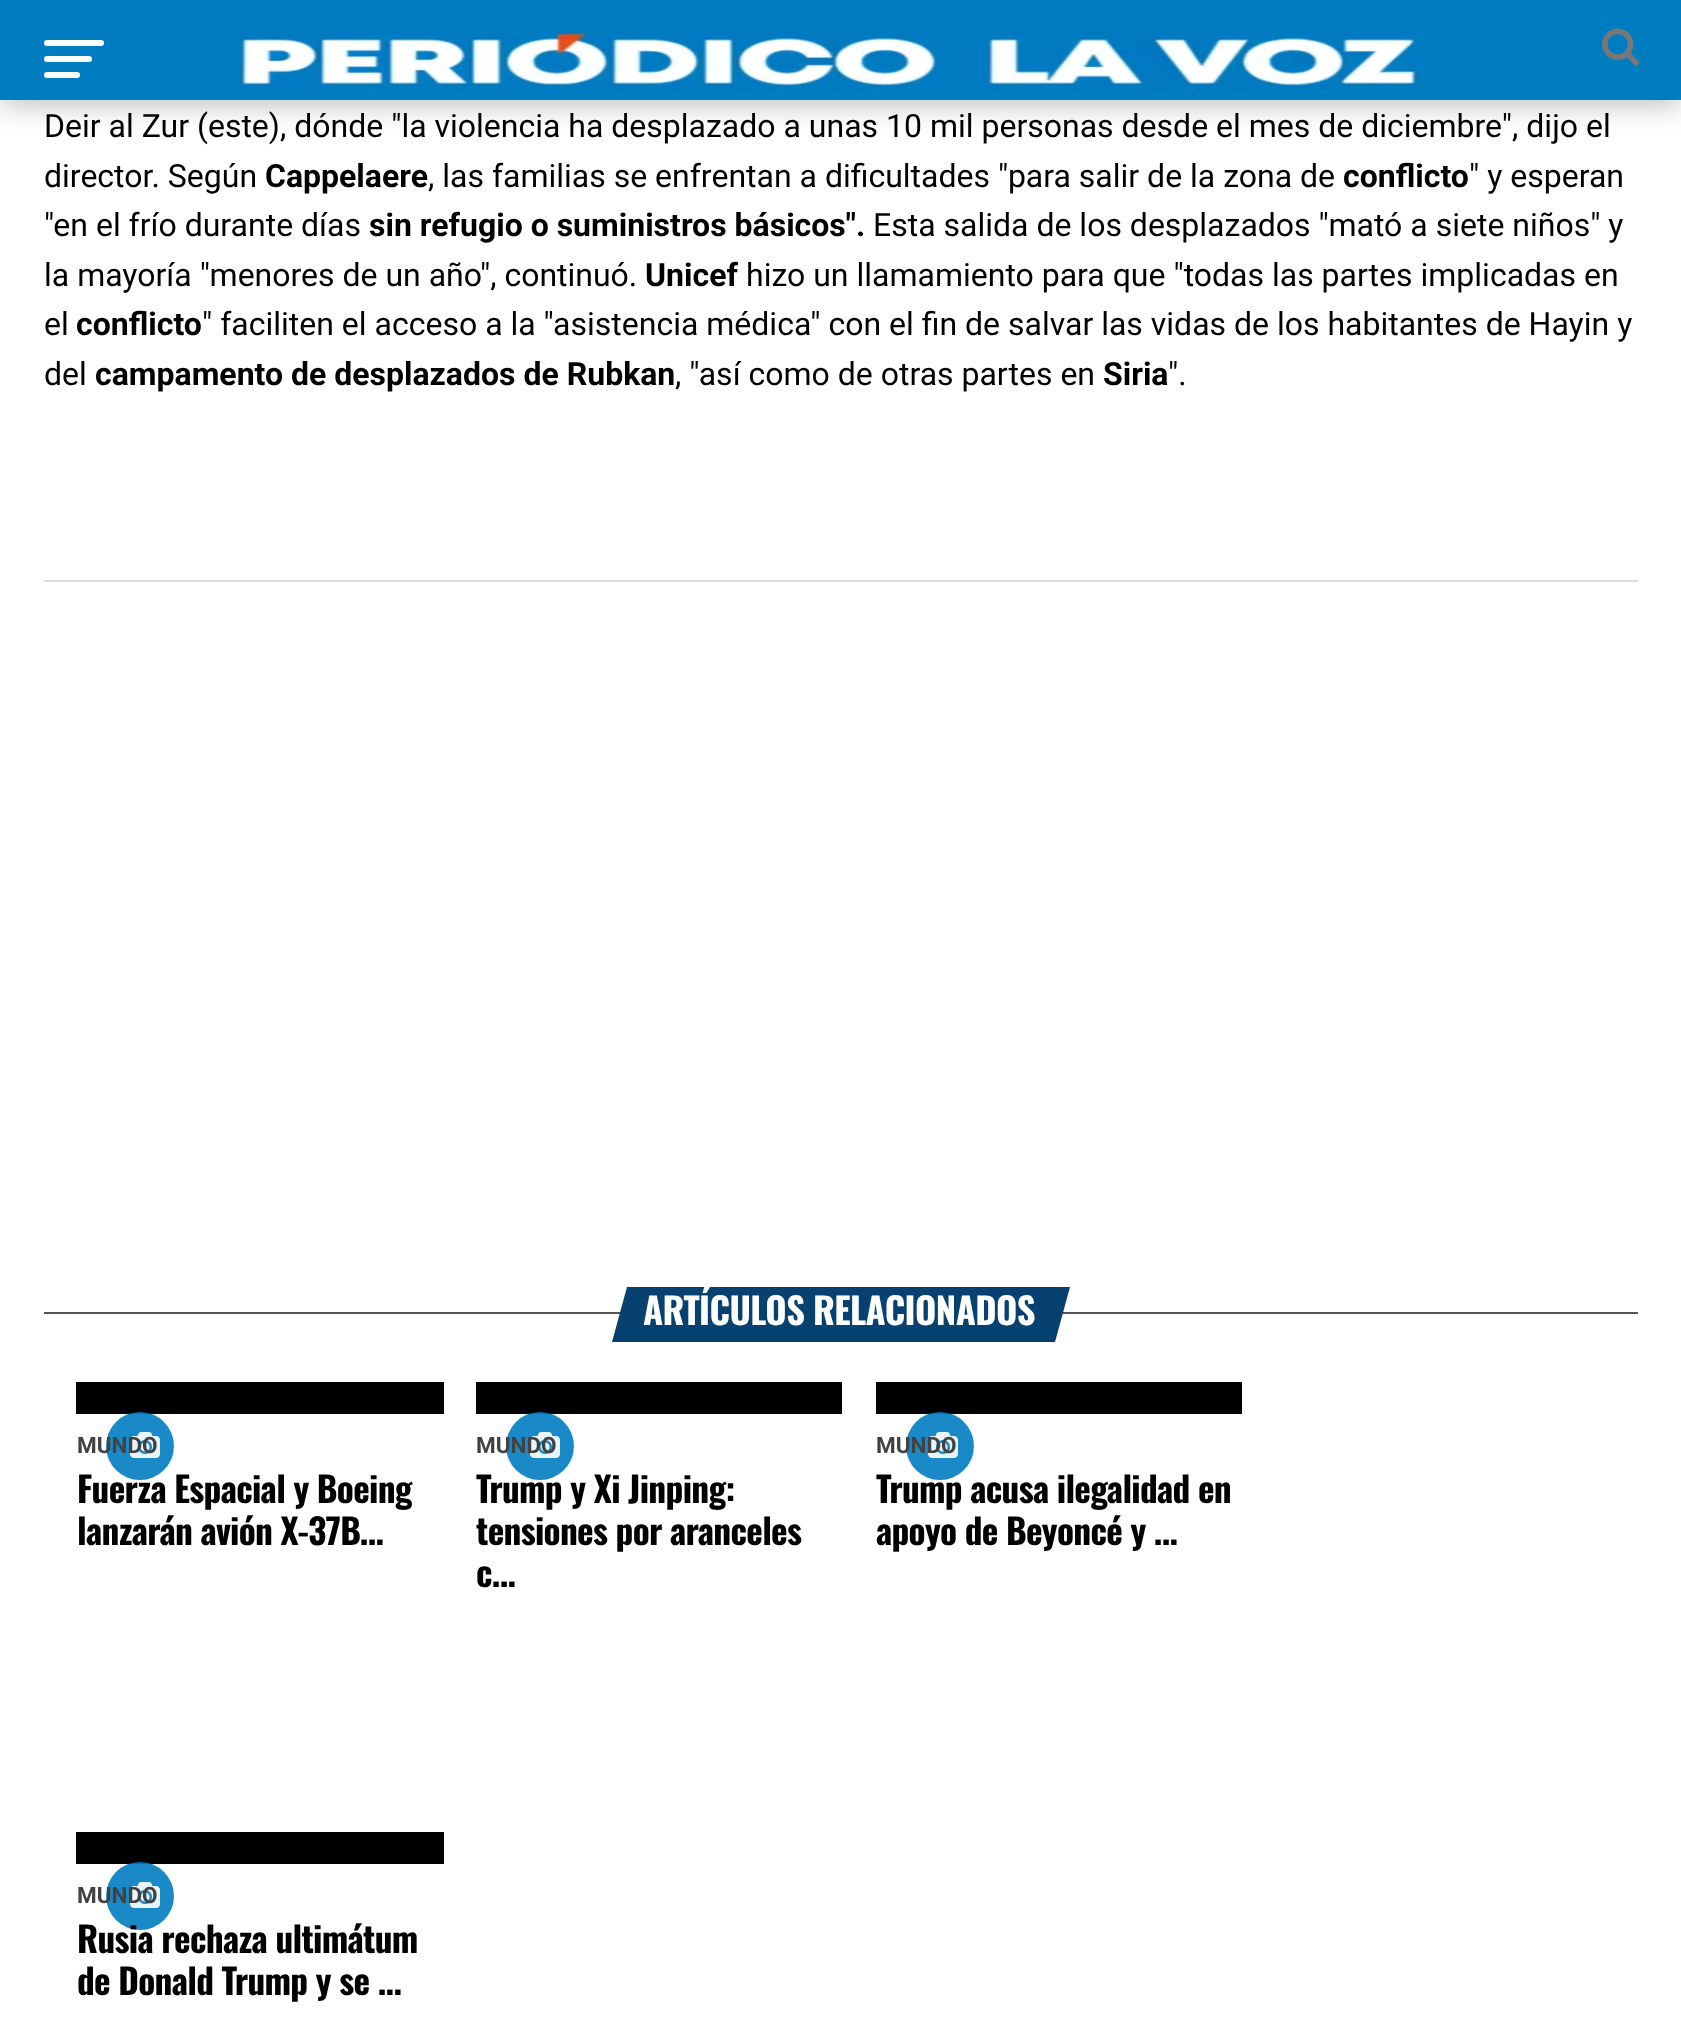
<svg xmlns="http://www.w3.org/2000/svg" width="1681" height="2043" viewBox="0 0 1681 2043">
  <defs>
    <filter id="blur1" x="-50%" y="-200%" width="200%" height="500%"><feGaussianBlur stdDeviation="16"/></filter>
  </defs>
  <rect width="100%" height="100%" fill="#ffffff"/>
  <rect x="0" y="2" width="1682" height="100" fill="#000000" fill-opacity="0.3" filter="url(#blur1)"/>
  <rect x="0" y="0" width="1681" height="100" fill="#007cc1"/>
  <rect x="44" y="40" width="60" height="6" rx="3" fill="#ffffff"/>
  <rect x="44" y="56" width="48" height="6" rx="3" fill="#ffffff"/>
  <rect x="44" y="72" width="36" height="6" rx="3" fill="#ffffff"/>
  <image x="239" y="32" width="1181" height="58" href="img1.png"/>
  <image x="1602" y="28" width="38" height="38" href="img2.png"/>
  <text x="44" y="137" font-family="Roboto" font-size="32" fill="#000000">Deir al Zur (este), dónde "la violencia ha desplazado a unas 10 mil personas desde el mes de diciembre", dijo el</text>
  <text x="44" y="187" font-family="Roboto" font-size="32" fill="#000000">director. Según</text>
  <text x="265" y="187" font-family="Roboto" font-size="32" font-weight="bold" fill="#000000">Cappelaere</text>
  <text x="428" y="187" font-family="Roboto" font-size="32" fill="#000000">, las familias se enfrentan a dificultades "para salir de la zona de</text>
  <text x="1343" y="187" font-family="Roboto" font-size="32" font-weight="bold" fill="#000000">conflicto</text>
  <text x="1469" y="187" font-family="Roboto" font-size="32" fill="#000000">" y esperan</text>
  <text x="44" y="236" font-family="Roboto" font-size="32" fill="#000000">"en el frío durante días</text>
  <text x="369" y="236" font-family="Roboto" font-size="32" font-weight="bold" fill="#000000">sin refugio o suministros básicos".</text>
  <text x="873" y="236" font-family="Roboto" font-size="32" fill="#000000">Esta salida de los desplazados "mató a siete niños" y</text>
  <text x="44" y="286" font-family="Roboto" font-size="32" fill="#000000">la mayoría "menores de un año", continuó.</text>
  <text x="645" y="286" font-family="Roboto" font-size="32" font-weight="bold" fill="#000000">Unicef</text>
  <text x="746" y="286" font-family="Roboto" font-size="32" fill="#000000">hizo un llamamiento para que "todas las partes implicadas en</text>
  <text x="44" y="335" font-family="Roboto" font-size="32" fill="#000000">el</text>
  <text x="76" y="335" font-family="Roboto" font-size="32" font-weight="bold" fill="#000000">conflicto</text>
  <text x="202" y="335" font-family="Roboto" font-size="32" fill="#000000">" faciliten el acceso a la "asistencia médica" con el fin de salvar las vidas de los habitantes de Hayin y</text>
  <text x="44" y="385" font-family="Roboto" font-size="32" fill="#000000">del</text>
  <text x="95" y="385" font-family="Roboto" font-size="32" font-weight="bold" fill="#000000">campamento de desplazados de Rubkan</text>
  <text x="675" y="385" font-family="Roboto" font-size="32" fill="#000000">, "así como de otras partes en</text>
  <text x="1103" y="385" font-family="Roboto" font-size="32" font-weight="bold" fill="#000000">Siria</text>
  <text x="1168" y="385" font-family="Roboto" font-size="32" fill="#000000">".</text>
  <rect x="44" y="580" width="1594" height="2" fill="#dddddd"/>
  <rect x="44" y="1312" width="1594" height="2" fill="#555555"/>
  <path d="M627 1287H1070L1055 1342H612Z" fill="#074170"/>
  <text x="643" y="1325" font-family="Oswald" font-size="36.5" font-weight="bold" letter-spacing="-0.6" fill="#ffffff">ARTÍCULOS RELACIONADOS</text>
  <rect x="76" y="1382" width="368" height="32" fill="#000000"/>
  <circle cx="140" cy="1446" r="34" fill="#007cc1" fill-opacity="0.9"/>
  <image x="130" y="1432" width="30" height="26" href="img3.png"/>
  <text x="77" y="1453" font-family="Roboto" font-size="22.5" font-weight="bold" fill="#424242">MUNDO</text>
  <text x="77" y="1503" font-family="Oswald" font-size="35.25" font-weight="bold" letter-spacing="-0.7" fill="#000000">Fuerza Espacial y Boeing</text>
  <text x="77" y="1545" font-family="Oswald" font-size="35.25" font-weight="bold" letter-spacing="-0.7" fill="#000000">lanzarán avión X-37B...</text>
  <rect x="476" y="1382" width="366" height="32" fill="#000000"/>
  <circle cx="540" cy="1446" r="34" fill="#007cc1" fill-opacity="0.9"/>
  <image x="530" y="1432" width="30" height="26" href="img3.png"/>
  <text x="476" y="1453" font-family="Roboto" font-size="22.5" font-weight="bold" fill="#424242">MUNDO</text>
  <text x="476" y="1503" font-family="Oswald" font-size="35.25" font-weight="bold" letter-spacing="-0.7" fill="#000000">Trump y Xi Jinping:</text>
  <text x="476" y="1545" font-family="Oswald" font-size="35.25" font-weight="bold" letter-spacing="-0.7" fill="#000000">tensiones por aranceles</text>
  <text x="476" y="1587" font-family="Oswald" font-size="35.25" font-weight="bold" letter-spacing="-0.7" fill="#000000">c...</text>
  <rect x="876" y="1382" width="366" height="32" fill="#000000"/>
  <circle cx="940" cy="1446" r="34" fill="#007cc1" fill-opacity="0.9"/>
  <image x="928" y="1432" width="30" height="26" href="img3.png"/>
  <text x="876" y="1453" font-family="Roboto" font-size="22.5" font-weight="bold" fill="#424242">MUNDO</text>
  <text x="876" y="1503" font-family="Oswald" font-size="35.25" font-weight="bold" letter-spacing="-0.7" fill="#000000">Trump acusa ilegalidad en</text>
  <text x="876" y="1545" font-family="Oswald" font-size="35.25" font-weight="bold" letter-spacing="-0.7" fill="#000000">apoyo de Beyoncé y ...</text>
  <rect x="76" y="1832" width="368" height="32" fill="#000000"/>
  <circle cx="140" cy="1896" r="34" fill="#007cc1" fill-opacity="0.9"/>
  <image x="130" y="1882" width="30" height="26" href="img3.png"/>
  <text x="77" y="1903" font-family="Roboto" font-size="22.5" font-weight="bold" fill="#424242">MUNDO</text>
  <text x="77" y="1953" font-family="Oswald" font-size="35.25" font-weight="bold" letter-spacing="-0.7" fill="#000000">Rusia rechaza ultimátum</text>
  <text x="77" y="1995" font-family="Oswald" font-size="35.25" font-weight="bold" letter-spacing="-0.7" fill="#000000">de Donald Trump y se ...</text>
</svg>
